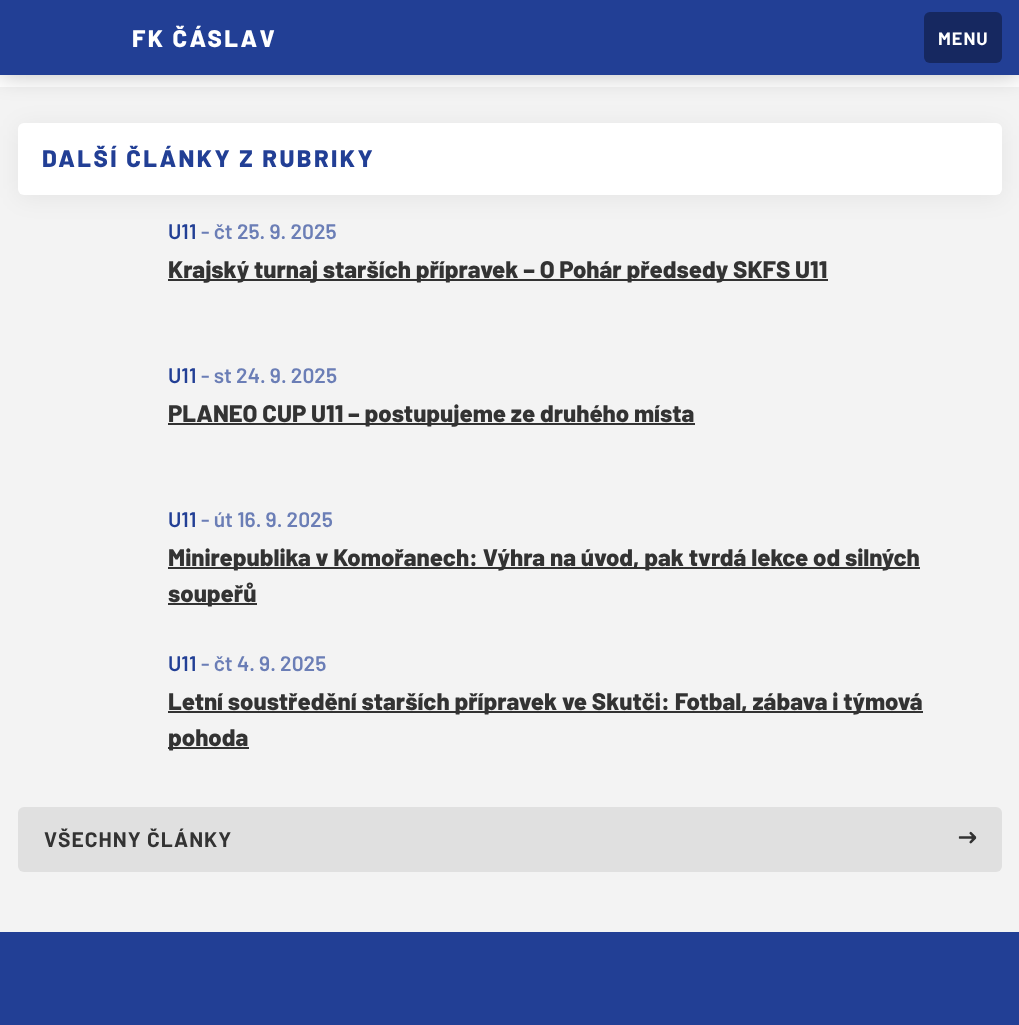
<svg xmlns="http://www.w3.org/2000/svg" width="1019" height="1025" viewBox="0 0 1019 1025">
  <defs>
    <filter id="blur1" x="-50%" y="-200%" width="200%" height="500%"><feGaussianBlur stdDeviation="12"/></filter>
  </defs>
  <rect width="100%" height="100%" fill="#f3f3f3"/>
  <rect x="0" y="75" width="1019" height="12" fill="#ffffff"/>
  <rect x="0" y="0" width="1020" height="75" fill="#000000" fill-opacity="0.25" filter="url(#blur1)"/>
  <rect x="0" y="0" width="1019" height="75" fill="#223f95"/>
  <text x="132" y="47" font-family="Barlow" font-size="24" font-weight="800" letter-spacing="2.4" fill="#ffffff">FK ČÁSLAV</text>
  <rect x="924" y="12" width="78" height="51" rx="6" fill="#162860"/>
  <text x="938" y="45" font-family="Barlow" font-size="18" font-weight="bold" letter-spacing="1" fill="#ffffff">MENU</text>
  <rect x="18" y="126" width="984" height="72" rx="6" fill="#000000" fill-opacity="0.06" filter="url(#blur1)"/>
  <rect x="18" y="123" width="984" height="72" rx="6" fill="#ffffff"/>
  <text x="42" y="167" font-family="Barlow" font-size="24" font-weight="800" letter-spacing="2.4" fill="#223f95">DALŠÍ ČLÁNKY Z RUBRIKY</text>
  <text x="168" y="239" font-family="Barlow" font-size="21" font-weight="600" fill="#223f95">U11</text>
  <text x="201" y="239" font-family="Barlow" font-size="21" font-weight="600" fill="#6b7eb6">- čt 25. 9. 2025</text>
  <rect x="168" y="279" width="660" height="2" fill="#333333"/>
  <text x="168" y="278" font-family="Barlow" font-size="24" font-weight="800" fill="#333333">Krajský turnaj starších přípravek – O Pohár předsedy SKFS U11</text>
  <text x="168" y="383" font-family="Barlow" font-size="21" font-weight="600" fill="#223f95">U11</text>
  <text x="201" y="383" font-family="Barlow" font-size="21" font-weight="600" fill="#6b7eb6">- st 24. 9. 2025</text>
  <rect x="168" y="423" width="527" height="2" fill="#333333"/>
  <text x="168" y="422" font-family="Barlow" font-size="24" font-weight="800" fill="#333333">PLANEO CUP U11 – postupujeme ze druhého místa</text>
  <text x="168" y="527" font-family="Barlow" font-size="21" font-weight="600" fill="#223f95">U11</text>
  <text x="201" y="527" font-family="Barlow" font-size="21" font-weight="600" fill="#6b7eb6">- út 16. 9. 2025</text>
  <rect x="168" y="567" width="752" height="2" fill="#333333"/>
  <text x="168" y="566" font-family="Barlow" font-size="24" font-weight="800" fill="#333333">Minirepublika v Komořanech: Výhra na úvod, pak tvrdá lekce od silných</text>
  <rect x="168" y="603" width="89" height="2" fill="#333333"/>
  <text x="168" y="602" font-family="Barlow" font-size="24" font-weight="800" fill="#333333">soupeřů</text>
  <text x="168" y="671" font-family="Barlow" font-size="21" font-weight="600" fill="#223f95">U11</text>
  <text x="201" y="671" font-family="Barlow" font-size="21" font-weight="600" fill="#6b7eb6">- čt 4. 9. 2025</text>
  <rect x="168" y="711" width="755" height="2" fill="#333333"/>
  <text x="168" y="710" font-family="Barlow" font-size="24" font-weight="800" fill="#333333">Letní soustředění starších přípravek ve Skutči: Fotbal, zábava i týmová</text>
  <rect x="168" y="747" width="81" height="2" fill="#333333"/>
  <text x="168" y="746" font-family="Barlow" font-size="24" font-weight="800" fill="#333333">pohoda</text>
  <rect x="18" y="807" width="984" height="65" rx="6" fill="#e0e0e0"/>
  <text x="44" y="847" font-family="Barlow" font-size="21" font-weight="bold" letter-spacing="1" fill="#333333">VŠECHNY ČLÁNKY</text>
  <image x="958" y="831" width="19" height="13" href="img1.png"/>
  <rect x="0" y="932" width="1019" height="93" fill="#223f95"/>
</svg>
